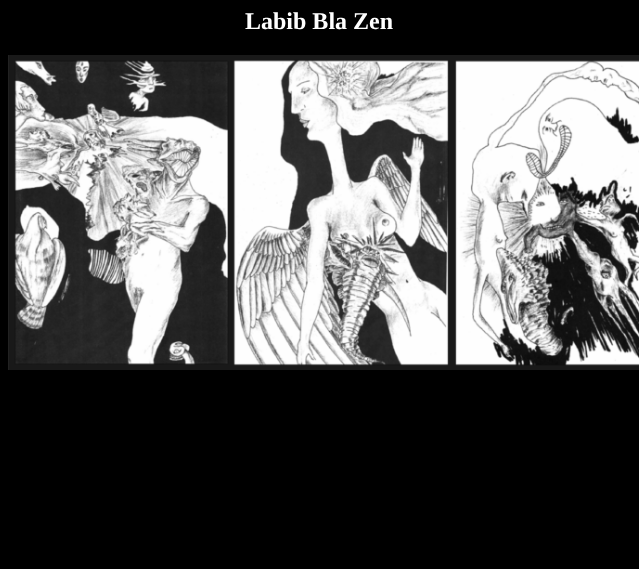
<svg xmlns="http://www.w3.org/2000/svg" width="639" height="569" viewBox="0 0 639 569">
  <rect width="100%" height="100%" fill="#000000"/>
  <text x="245" y="29" font-family="Liberation Serif" font-size="24" font-weight="bold" fill="#ffffff">Labib Bla Zen</text>
  <image x="8" y="55" width="631" height="315" href="img1.png"/>
</svg>
